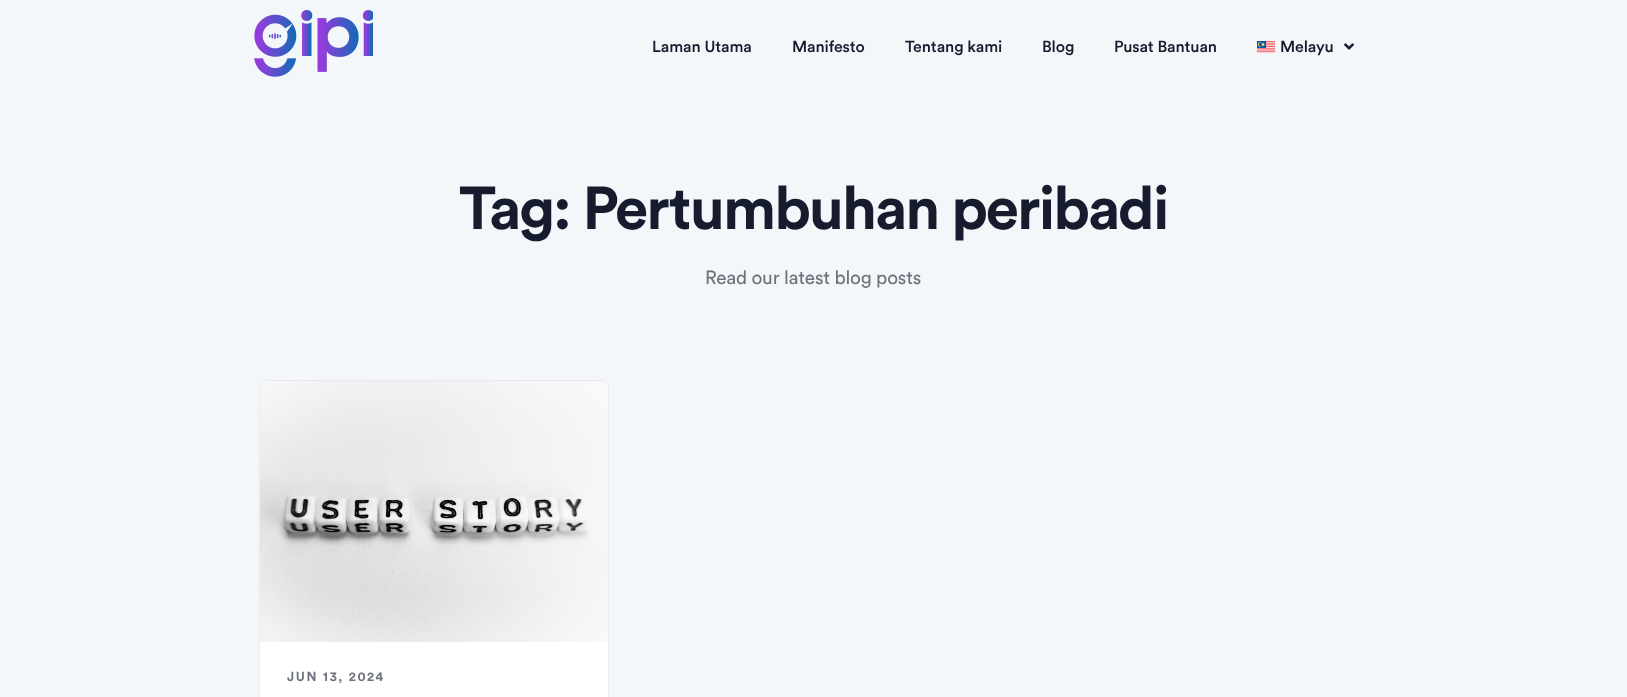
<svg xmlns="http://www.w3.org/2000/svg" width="1627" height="697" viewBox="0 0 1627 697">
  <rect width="100%" height="100%" fill="#f4f7fa"/>
  <image x="254" y="10" width="119" height="67" href="img1.png"/>
  <text x="652" y="52" font-family="Circular" font-size="16" font-weight="500" letter-spacing="-0.1" fill="#161c2d">Laman Utama</text>
  <text x="792" y="52" font-family="Circular" font-size="16" font-weight="500" letter-spacing="-0.1" fill="#161c2d">Manifesto</text>
  <text x="905" y="52" font-family="Circular" font-size="16" font-weight="500" letter-spacing="-0.1" fill="#161c2d">Tentang kami</text>
  <text x="1042" y="52" font-family="Circular" font-size="16" font-weight="500" letter-spacing="-0.1" fill="#161c2d">Blog</text>
  <text x="1114" y="52" font-family="Circular" font-size="16" font-weight="500" letter-spacing="-0.1" fill="#161c2d">Pusat Bantuan</text>
  <image x="1257" y="41" width="18" height="12" href="img2.png"/>
  <text x="1280" y="52" font-family="Circular" font-size="16" font-weight="500" letter-spacing="-0.1" fill="#161c2d">Melayu</text>
  <image x="1344" y="43" width="10" height="7" href="img3.png"/>
  <text x="459" y="229" font-family="Circular" font-size="60" font-weight="bold" letter-spacing="-2" fill="#161c2d">Tag: Pertumbuhan peribadi</text>
  <text x="705" y="284" font-family="Circular" font-size="19" letter-spacing="-0.2" fill="#6e727d">Read our latest blog posts</text>
  <rect x="259.5" y="380.5" width="349" height="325" rx="7.5" fill="#ffffff" stroke="#eae9f2"/>
  <image x="260" y="381" width="348" height="261" href="img4.png"/>
  <text x="287" y="681" font-family="Circular" font-size="13" font-weight="bold" letter-spacing="1.6" fill="#6e727d">JUN 13, 2024</text>
</svg>
